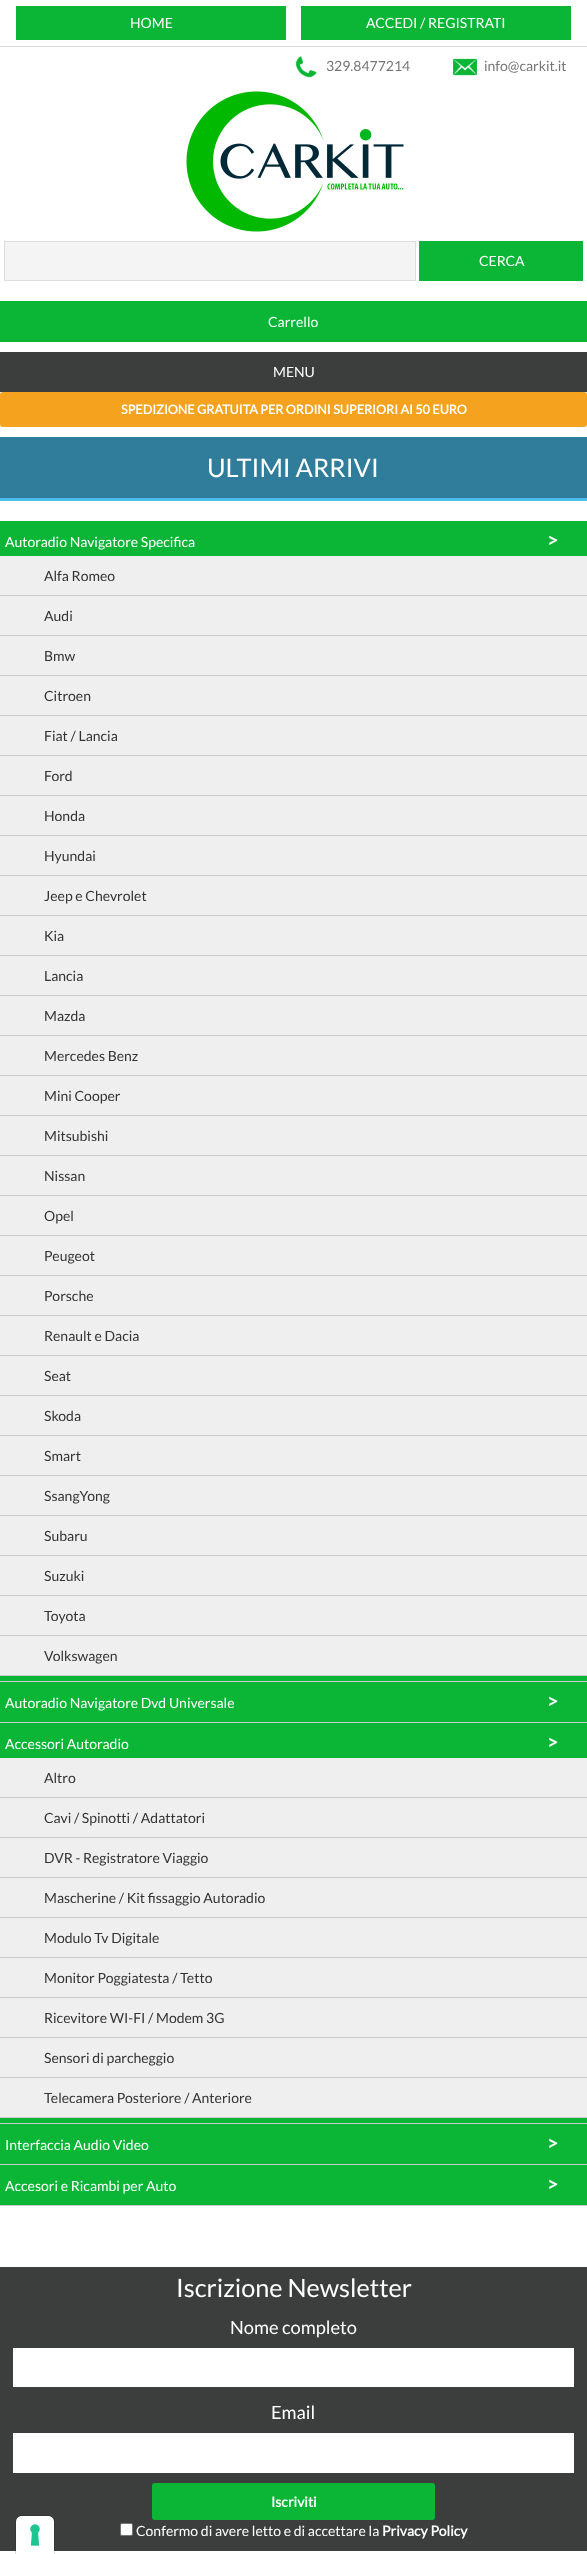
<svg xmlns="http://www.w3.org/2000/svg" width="587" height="2554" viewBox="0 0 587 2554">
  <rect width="100%" height="100%" fill="#ffffff"/>
  <rect x="0" y="46" width="587" height="1" fill="#d8d8d8"/>
  <rect x="16" y="6" width="270" height="34" fill="#0bb637"/>
  <text x="130" y="28" font-family="Lato" font-size="14" fill="#ffffff">HOME</text>
  <rect x="301" y="6" width="270" height="34" fill="#0bb637"/>
  <text x="366" y="28" font-family="Lato" font-size="14" fill="#ffffff">ACCEDI / REGISTRATI</text>
  <image x="295" y="56" width="22" height="22" href="img1.png"/>
  <text x="326" y="71" font-family="Lato" font-size="14" fill="#777777">329.8477214</text>
  <image x="453" y="58" width="24" height="18" href="img2.png"/>
  <text x="484" y="71" font-family="Lato" font-size="14" fill="#777777">info@carkit.it</text>
  <image x="186" y="91" width="218" height="141" href="img3.png"/>
  <rect x="4.5" y="241.5" width="411" height="39" fill="#f4f4f4" stroke="#dddddd"/>
  <rect x="419" y="241" width="164" height="40" fill="#0bb637"/>
  <text x="479" y="266" font-family="Lato" font-size="14" fill="#ffffff">CERCA</text>
  <rect x="0" y="301" width="587" height="41" fill="#0bb637"/>
  <text x="268" y="327" font-family="Lato" font-size="14" fill="#ffffff">Carrello</text>
  <rect x="0" y="352" width="587" height="40" fill="#3c3e3d"/>
  <text x="273" y="377" font-family="Lato" font-size="14" fill="#ffffff">MENU</text>
  <rect x="0" y="392" width="587" height="35" rx="3" fill="#f5a31e"/>
  <text x="121" y="414" font-family="Lato" font-size="12.6" font-weight="bold" fill="#ffffff">SPEDIZIONE GRATUITA PER ORDINI SUPERIORI AI 50 EURO</text>
  <rect x="0" y="437" width="587" height="61" fill="#2f7c9b"/>
  <rect x="0" y="498" width="587" height="3" fill="#4cbeec"/>
  <text x="207" y="477" font-family="Lato" font-size="25.5" fill="#ffffff">ULTIMI ARRIVI</text>
  <rect x="0" y="521" width="587" height="1160" fill="#0bb637"/>
  <rect x="0" y="1681" width="587" height="1" fill="#cccccc"/>
  <text x="5" y="547" font-family="Lato" font-size="14" fill="#ffffff">Autoradio Navigatore Specifica</text>
  <text x="547" y="547" font-family="Lato" font-size="19" font-weight="bold" fill="#ffffff">&gt;</text>
  <rect x="0" y="556" width="587" height="39" fill="#efefef"/>
  <rect x="0" y="595" width="587" height="1" fill="#cccccc"/>
  <text x="44" y="581" font-family="Lato" font-size="14" fill="#333333">Alfa Romeo</text>
  <rect x="0" y="596" width="587" height="39" fill="#efefef"/>
  <rect x="0" y="635" width="587" height="1" fill="#cccccc"/>
  <text x="44" y="621" font-family="Lato" font-size="14" fill="#333333">Audi</text>
  <rect x="0" y="636" width="587" height="39" fill="#efefef"/>
  <rect x="0" y="675" width="587" height="1" fill="#cccccc"/>
  <text x="44" y="661" font-family="Lato" font-size="14" fill="#333333">Bmw</text>
  <rect x="0" y="676" width="587" height="39" fill="#efefef"/>
  <rect x="0" y="715" width="587" height="1" fill="#cccccc"/>
  <text x="44" y="701" font-family="Lato" font-size="14" fill="#333333">Citroen</text>
  <rect x="0" y="716" width="587" height="39" fill="#efefef"/>
  <rect x="0" y="755" width="587" height="1" fill="#cccccc"/>
  <text x="44" y="741" font-family="Lato" font-size="14" fill="#333333">Fiat / Lancia</text>
  <rect x="0" y="756" width="587" height="39" fill="#efefef"/>
  <rect x="0" y="795" width="587" height="1" fill="#cccccc"/>
  <text x="44" y="781" font-family="Lato" font-size="14" fill="#333333">Ford</text>
  <rect x="0" y="796" width="587" height="39" fill="#efefef"/>
  <rect x="0" y="835" width="587" height="1" fill="#cccccc"/>
  <text x="44" y="821" font-family="Lato" font-size="14" fill="#333333">Honda</text>
  <rect x="0" y="836" width="587" height="39" fill="#efefef"/>
  <rect x="0" y="875" width="587" height="1" fill="#cccccc"/>
  <text x="44" y="861" font-family="Lato" font-size="14" fill="#333333">Hyundai</text>
  <rect x="0" y="876" width="587" height="39" fill="#efefef"/>
  <rect x="0" y="915" width="587" height="1" fill="#cccccc"/>
  <text x="44" y="901" font-family="Lato" font-size="14" fill="#333333">Jeep e Chevrolet</text>
  <rect x="0" y="916" width="587" height="39" fill="#efefef"/>
  <rect x="0" y="955" width="587" height="1" fill="#cccccc"/>
  <text x="44" y="941" font-family="Lato" font-size="14" fill="#333333">Kia</text>
  <rect x="0" y="956" width="587" height="39" fill="#efefef"/>
  <rect x="0" y="995" width="587" height="1" fill="#cccccc"/>
  <text x="44" y="981" font-family="Lato" font-size="14" fill="#333333">Lancia</text>
  <rect x="0" y="996" width="587" height="39" fill="#efefef"/>
  <rect x="0" y="1035" width="587" height="1" fill="#cccccc"/>
  <text x="44" y="1021" font-family="Lato" font-size="14" fill="#333333">Mazda</text>
  <rect x="0" y="1036" width="587" height="39" fill="#efefef"/>
  <rect x="0" y="1075" width="587" height="1" fill="#cccccc"/>
  <text x="44" y="1061" font-family="Lato" font-size="14" fill="#333333">Mercedes Benz</text>
  <rect x="0" y="1076" width="587" height="39" fill="#efefef"/>
  <rect x="0" y="1115" width="587" height="1" fill="#cccccc"/>
  <text x="44" y="1101" font-family="Lato" font-size="14" fill="#333333">Mini Cooper</text>
  <rect x="0" y="1116" width="587" height="39" fill="#efefef"/>
  <rect x="0" y="1155" width="587" height="1" fill="#cccccc"/>
  <text x="44" y="1141" font-family="Lato" font-size="14" fill="#333333">Mitsubishi</text>
  <rect x="0" y="1156" width="587" height="39" fill="#efefef"/>
  <rect x="0" y="1195" width="587" height="1" fill="#cccccc"/>
  <text x="44" y="1181" font-family="Lato" font-size="14" fill="#333333">Nissan</text>
  <rect x="0" y="1196" width="587" height="39" fill="#efefef"/>
  <rect x="0" y="1235" width="587" height="1" fill="#cccccc"/>
  <text x="44" y="1221" font-family="Lato" font-size="14" fill="#333333">Opel</text>
  <rect x="0" y="1236" width="587" height="39" fill="#efefef"/>
  <rect x="0" y="1275" width="587" height="1" fill="#cccccc"/>
  <text x="44" y="1261" font-family="Lato" font-size="14" fill="#333333">Peugeot</text>
  <rect x="0" y="1276" width="587" height="39" fill="#efefef"/>
  <rect x="0" y="1315" width="587" height="1" fill="#cccccc"/>
  <text x="44" y="1301" font-family="Lato" font-size="14" fill="#333333">Porsche</text>
  <rect x="0" y="1316" width="587" height="39" fill="#efefef"/>
  <rect x="0" y="1355" width="587" height="1" fill="#cccccc"/>
  <text x="44" y="1341" font-family="Lato" font-size="14" fill="#333333">Renault e Dacia</text>
  <rect x="0" y="1356" width="587" height="39" fill="#efefef"/>
  <rect x="0" y="1395" width="587" height="1" fill="#cccccc"/>
  <text x="44" y="1381" font-family="Lato" font-size="14" fill="#333333">Seat</text>
  <rect x="0" y="1396" width="587" height="39" fill="#efefef"/>
  <rect x="0" y="1435" width="587" height="1" fill="#cccccc"/>
  <text x="44" y="1421" font-family="Lato" font-size="14" fill="#333333">Skoda</text>
  <rect x="0" y="1436" width="587" height="39" fill="#efefef"/>
  <rect x="0" y="1475" width="587" height="1" fill="#cccccc"/>
  <text x="44" y="1461" font-family="Lato" font-size="14" fill="#333333">Smart</text>
  <rect x="0" y="1476" width="587" height="39" fill="#efefef"/>
  <rect x="0" y="1515" width="587" height="1" fill="#cccccc"/>
  <text x="44" y="1501" font-family="Lato" font-size="14" fill="#333333">SsangYong</text>
  <rect x="0" y="1516" width="587" height="39" fill="#efefef"/>
  <rect x="0" y="1555" width="587" height="1" fill="#cccccc"/>
  <text x="44" y="1541" font-family="Lato" font-size="14" fill="#333333">Subaru</text>
  <rect x="0" y="1556" width="587" height="39" fill="#efefef"/>
  <rect x="0" y="1595" width="587" height="1" fill="#cccccc"/>
  <text x="44" y="1581" font-family="Lato" font-size="14" fill="#333333">Suzuki</text>
  <rect x="0" y="1596" width="587" height="39" fill="#efefef"/>
  <rect x="0" y="1635" width="587" height="1" fill="#cccccc"/>
  <text x="44" y="1621" font-family="Lato" font-size="14" fill="#333333">Toyota</text>
  <rect x="0" y="1636" width="587" height="39" fill="#efefef"/>
  <rect x="0" y="1675" width="587" height="1" fill="#cccccc"/>
  <text x="44" y="1661" font-family="Lato" font-size="14" fill="#333333">Volkswagen</text>
  <rect x="0" y="1682" width="587" height="40" fill="#0bb637"/>
  <rect x="0" y="1722" width="587" height="1" fill="#cccccc"/>
  <text x="5" y="1708" font-family="Lato" font-size="14" fill="#ffffff">Autoradio Navigatore Dvd Universale</text>
  <text x="547" y="1708" font-family="Lato" font-size="19" font-weight="bold" fill="#ffffff">&gt;</text>
  <rect x="0" y="1723" width="587" height="400" fill="#0bb637"/>
  <rect x="0" y="2123" width="587" height="1" fill="#cccccc"/>
  <text x="5" y="1749" font-family="Lato" font-size="14" fill="#ffffff">Accessori Autoradio</text>
  <text x="547" y="1749" font-family="Lato" font-size="19" font-weight="bold" fill="#ffffff">&gt;</text>
  <rect x="0" y="1758" width="587" height="39" fill="#efefef"/>
  <rect x="0" y="1797" width="587" height="1" fill="#cccccc"/>
  <text x="44" y="1783" font-family="Lato" font-size="14" fill="#333333">Altro</text>
  <rect x="0" y="1798" width="587" height="39" fill="#efefef"/>
  <rect x="0" y="1837" width="587" height="1" fill="#cccccc"/>
  <text x="44" y="1823" font-family="Lato" font-size="14" fill="#333333">Cavi / Spinotti / Adattatori</text>
  <rect x="0" y="1838" width="587" height="39" fill="#efefef"/>
  <rect x="0" y="1877" width="587" height="1" fill="#cccccc"/>
  <text x="44" y="1863" font-family="Lato" font-size="14" fill="#333333">DVR - Registratore Viaggio</text>
  <rect x="0" y="1878" width="587" height="39" fill="#efefef"/>
  <rect x="0" y="1917" width="587" height="1" fill="#cccccc"/>
  <text x="44" y="1903" font-family="Lato" font-size="14" fill="#333333">Mascherine / Kit fissaggio Autoradio</text>
  <rect x="0" y="1918" width="587" height="39" fill="#efefef"/>
  <rect x="0" y="1957" width="587" height="1" fill="#cccccc"/>
  <text x="44" y="1943" font-family="Lato" font-size="14" fill="#333333">Modulo Tv Digitale</text>
  <rect x="0" y="1958" width="587" height="39" fill="#efefef"/>
  <rect x="0" y="1997" width="587" height="1" fill="#cccccc"/>
  <text x="44" y="1983" font-family="Lato" font-size="14" fill="#333333">Monitor Poggiatesta / Tetto</text>
  <rect x="0" y="1998" width="587" height="39" fill="#efefef"/>
  <rect x="0" y="2037" width="587" height="1" fill="#cccccc"/>
  <text x="44" y="2023" font-family="Lato" font-size="14" fill="#333333">Ricevitore WI-FI / Modem 3G</text>
  <rect x="0" y="2038" width="587" height="39" fill="#efefef"/>
  <rect x="0" y="2077" width="587" height="1" fill="#cccccc"/>
  <text x="44" y="2063" font-family="Lato" font-size="14" fill="#333333">Sensori di parcheggio</text>
  <rect x="0" y="2078" width="587" height="39" fill="#efefef"/>
  <rect x="0" y="2117" width="587" height="1" fill="#cccccc"/>
  <text x="44" y="2103" font-family="Lato" font-size="14" fill="#333333">Telecamera Posteriore / Anteriore</text>
  <rect x="0" y="2124" width="587" height="40" fill="#0bb637"/>
  <rect x="0" y="2164" width="587" height="1" fill="#cccccc"/>
  <text x="5" y="2150" font-family="Lato" font-size="14" fill="#ffffff">Interfaccia Audio Video</text>
  <text x="547" y="2150" font-family="Lato" font-size="19" font-weight="bold" fill="#ffffff">&gt;</text>
  <rect x="0" y="2165" width="587" height="40" fill="#0bb637"/>
  <rect x="0" y="2205" width="587" height="1" fill="#cccccc"/>
  <text x="5" y="2191" font-family="Lato" font-size="14" fill="#ffffff">Accesori e Ricambi per Auto</text>
  <text x="547" y="2191" font-family="Lato" font-size="19" font-weight="bold" fill="#ffffff">&gt;</text>
  <rect x="0" y="2267" width="587" height="284" fill="#3c3e3d"/>
  <text x="176" y="2297" font-family="Lato" font-size="25.25" fill="#ffffff">Iscrizione Newsletter</text>
  <text x="230" y="2334" font-family="Lato" font-size="18.25" fill="#ffffff">Nome completo</text>
  <rect x="13" y="2348" width="561" height="39" fill="#ffffff"/>
  <text x="271" y="2419" font-family="Lato" font-size="18.25" fill="#ffffff">Email</text>
  <rect x="13" y="2433" width="561" height="40" fill="#ffffff"/>
  <rect x="152" y="2483" width="283" height="37" rx="3" fill="#0bb637"/>
  <text x="271" y="2507" font-family="Lato" font-size="14" font-weight="bold" fill="#ffffff">Iscriviti</text>
  <rect x="120.5" y="2523.5" width="12" height="12" rx="1.5" fill="#ffffff" stroke="#767676"/>
  <text x="136" y="2536" font-family="Lato" font-size="14" fill="#ffffff">Confermo di avere letto e di accettare la</text>
  <text x="382" y="2536" font-family="Lato" font-size="14" font-weight="bold" fill="#ffffff">Privacy Policy</text>
  <path d="M22 2515.5H48C51.5 2515.5 54.5 2518.5 54.5 2522V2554.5H15.5V2522C15.5 2518.5 18.5 2515.5 22 2515.5Z" fill="none" stroke="#000000" stroke-opacity="0.15"/>
  <path d="M22 2516H48C51.5 2516 54 2518.5 54 2522V2554H16V2522C16 2518.5 18.5 2516 22 2516Z" fill="#ffffff"/>
  <image x="30" y="2524" width="10" height="22" href="img4.png"/>
</svg>
